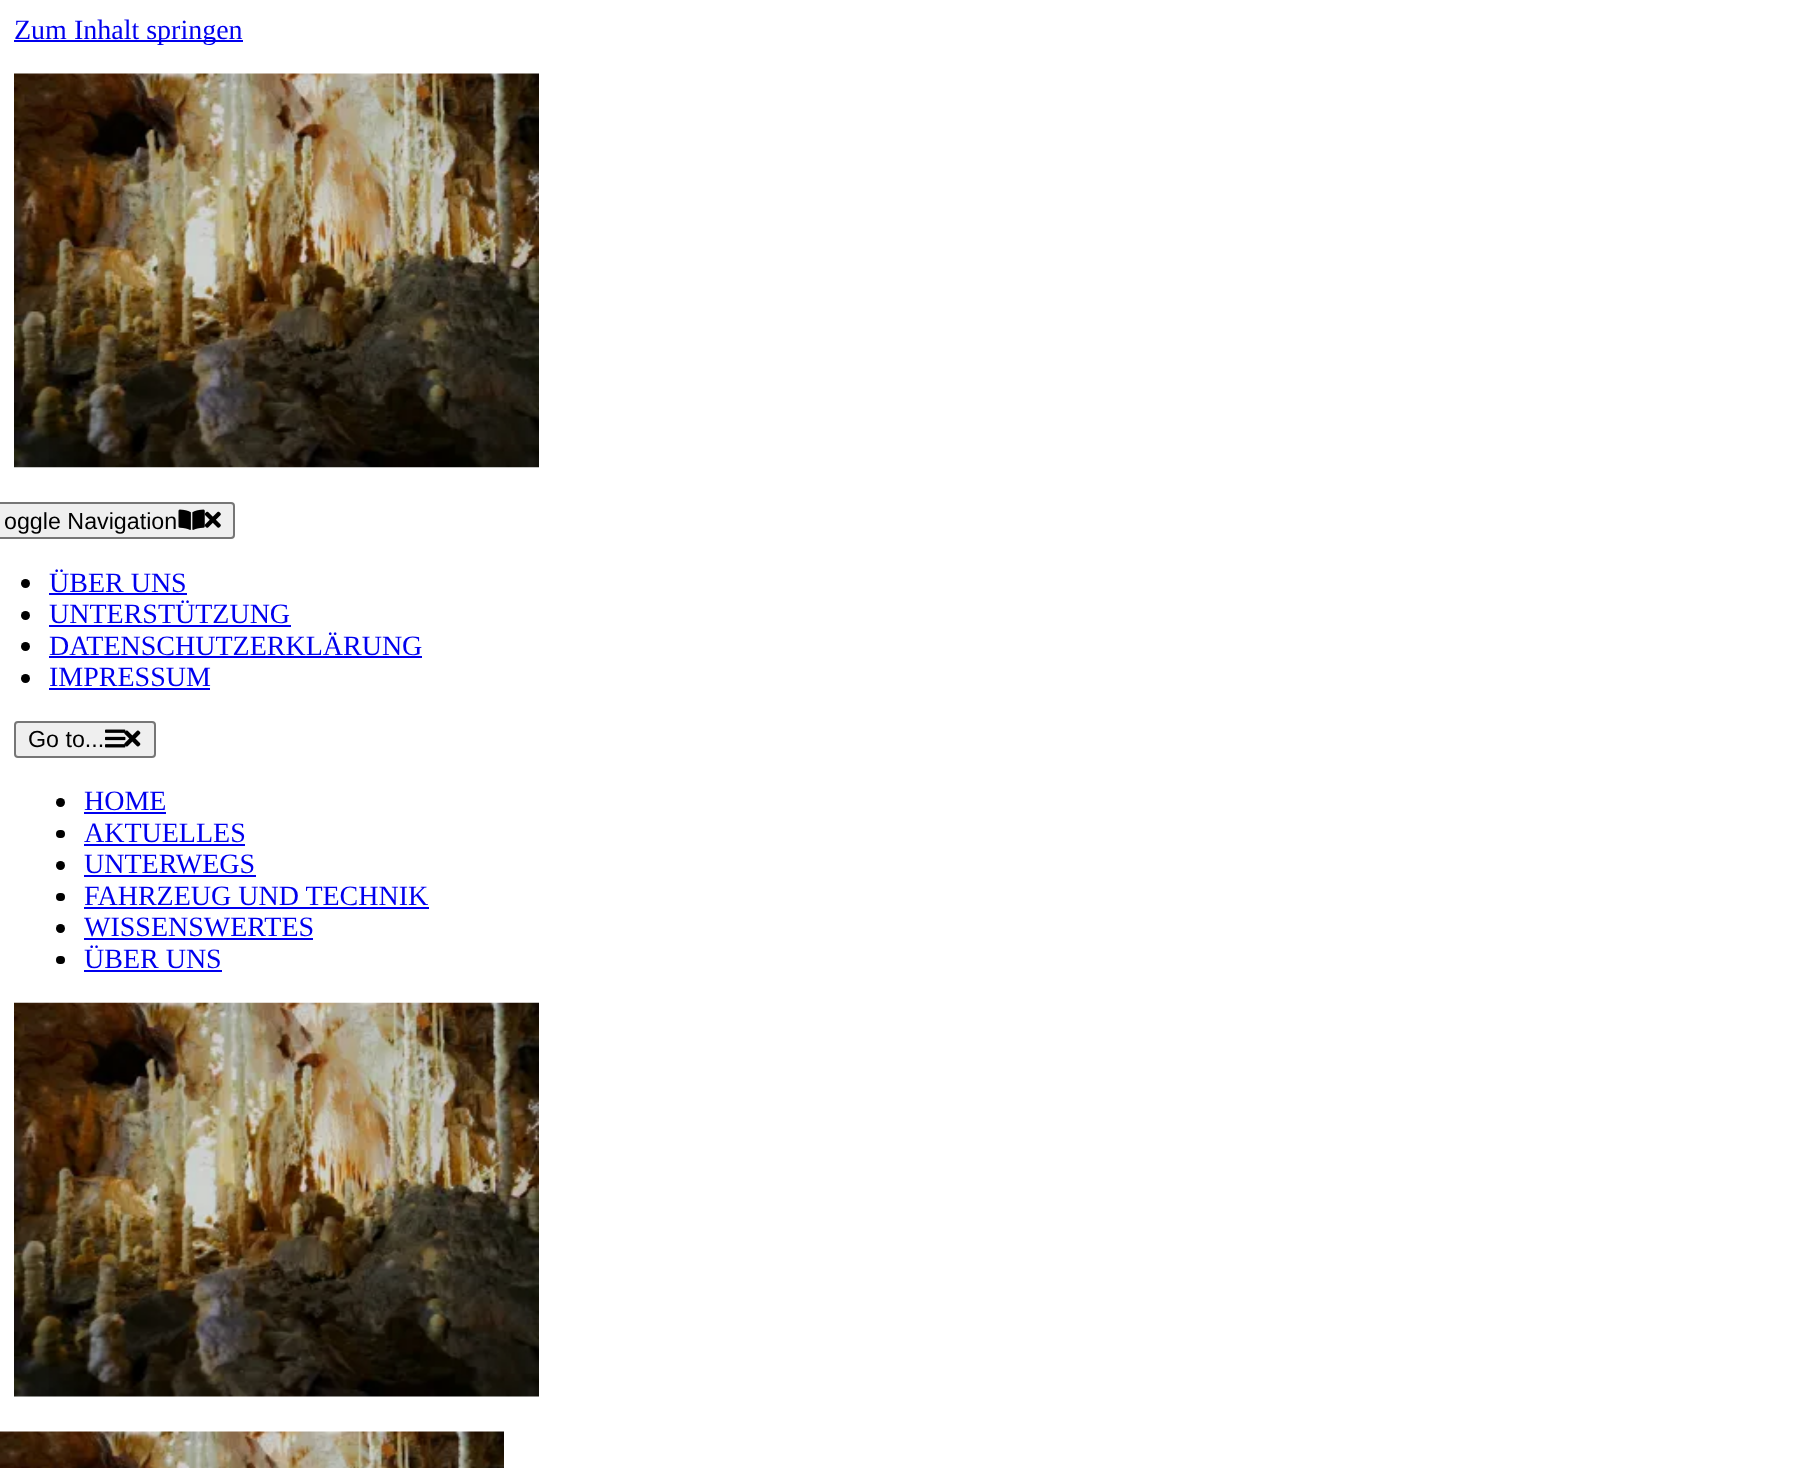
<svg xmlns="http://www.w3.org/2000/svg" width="1795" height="1468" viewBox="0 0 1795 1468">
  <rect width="100%" height="100%" fill="#ffffff"/>
  <rect x="14" y="40" width="229" height="2" fill="#0000ee"/>
  <text x="14" y="39" font-family="Liberation Serif" font-size="28" fill="#0000ee">Zum Inhalt springen</text>
  <image x="14" y="73" width="525" height="395" href="img1.png"/>
  <rect x="-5" y="503" width="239" height="35" rx="3" fill="#efefef" stroke="#767676" stroke-width="2"/>
  <text x="4" y="529" font-family="Liberation Sans" font-size="23.25" fill="#000000">oggle Navigation</text>
  <image x="178" y="509" width="27" height="21" href="img2.png"/>
  <image x="204" y="511" width="17" height="17" href="img3.png"/>
  <circle cx="25.5" cy="583.5" r="4.5" fill="#000000"/>
  <text x="49" y="592" font-family="Liberation Serif" font-size="28" fill="#0000ee">ÜBER UNS</text>
  <rect x="49" y="593" width="138" height="2" fill="#0000ee"/>
  <circle cx="25.5" cy="615.5" r="4.5" fill="#000000"/>
  <text x="49" y="623" font-family="Liberation Serif" font-size="28" fill="#0000ee">UNTERSTÜTZUNG</text>
  <rect x="49" y="625" width="242" height="2" fill="#0000ee"/>
  <circle cx="25.5" cy="646.5" r="4.5" fill="#000000"/>
  <text x="49" y="655" font-family="Liberation Serif" font-size="28" fill="#0000ee">DATENSCHUTZERKLÄRUNG</text>
  <rect x="49" y="656" width="373" height="2" fill="#0000ee"/>
  <circle cx="25.5" cy="678.5" r="4.5" fill="#000000"/>
  <text x="49" y="686" font-family="Liberation Serif" font-size="28" fill="#0000ee">IMPRESSUM</text>
  <rect x="49" y="688" width="161" height="2" fill="#0000ee"/>
  <rect x="15" y="722" width="140" height="35" rx="3" fill="#efefef" stroke="#767676" stroke-width="2"/>
  <text x="28" y="747" font-family="Liberation Sans" font-size="23.25" fill="#000000">Go to...</text>
  <image x="105" y="729" width="21" height="19" href="img4.png"/>
  <image x="124" y="730" width="17" height="17" href="img5.png"/>
  <circle cx="60.5" cy="802.5" r="4.5" fill="#000000"/>
  <text x="84" y="810" font-family="Liberation Serif" font-size="28" fill="#0000ee">HOME</text>
  <rect x="84" y="812" width="82" height="2" fill="#0000ee"/>
  <rect x="56" y="830" width="9" height="8" rx="4" fill="#000000"/>
  <text x="84" y="842" font-family="Liberation Serif" font-size="28" fill="#0000ee">AKTUELLES</text>
  <rect x="84" y="844" width="161" height="2" fill="#0000ee"/>
  <circle cx="60.5" cy="865.5" r="4.5" fill="#000000"/>
  <text x="84" y="873" font-family="Liberation Serif" font-size="28" fill="#0000ee">UNTERWEGS</text>
  <rect x="84" y="875" width="172" height="2" fill="#0000ee"/>
  <rect x="56" y="893" width="9" height="8" rx="4" fill="#000000"/>
  <text x="84" y="905" font-family="Liberation Serif" font-size="28" fill="#0000ee">FAHRZEUG UND TECHNIK</text>
  <rect x="84" y="907" width="345" height="2" fill="#0000ee"/>
  <circle cx="60.5" cy="928.5" r="4.5" fill="#000000"/>
  <text x="84" y="936" font-family="Liberation Serif" font-size="28" fill="#0000ee">WISSENSWERTES</text>
  <rect x="84" y="938" width="229" height="2" fill="#0000ee"/>
  <rect x="56" y="956" width="9" height="8" rx="4" fill="#000000"/>
  <text x="84" y="968" font-family="Liberation Serif" font-size="28" fill="#0000ee">ÜBER UNS</text>
  <rect x="84" y="970" width="138" height="2" fill="#0000ee"/>
  <image x="14" y="1002" width="525" height="395" href="img6.png"/>
  <image x="0" y="1431" width="504" height="37" href="img7.png"/>
</svg>
